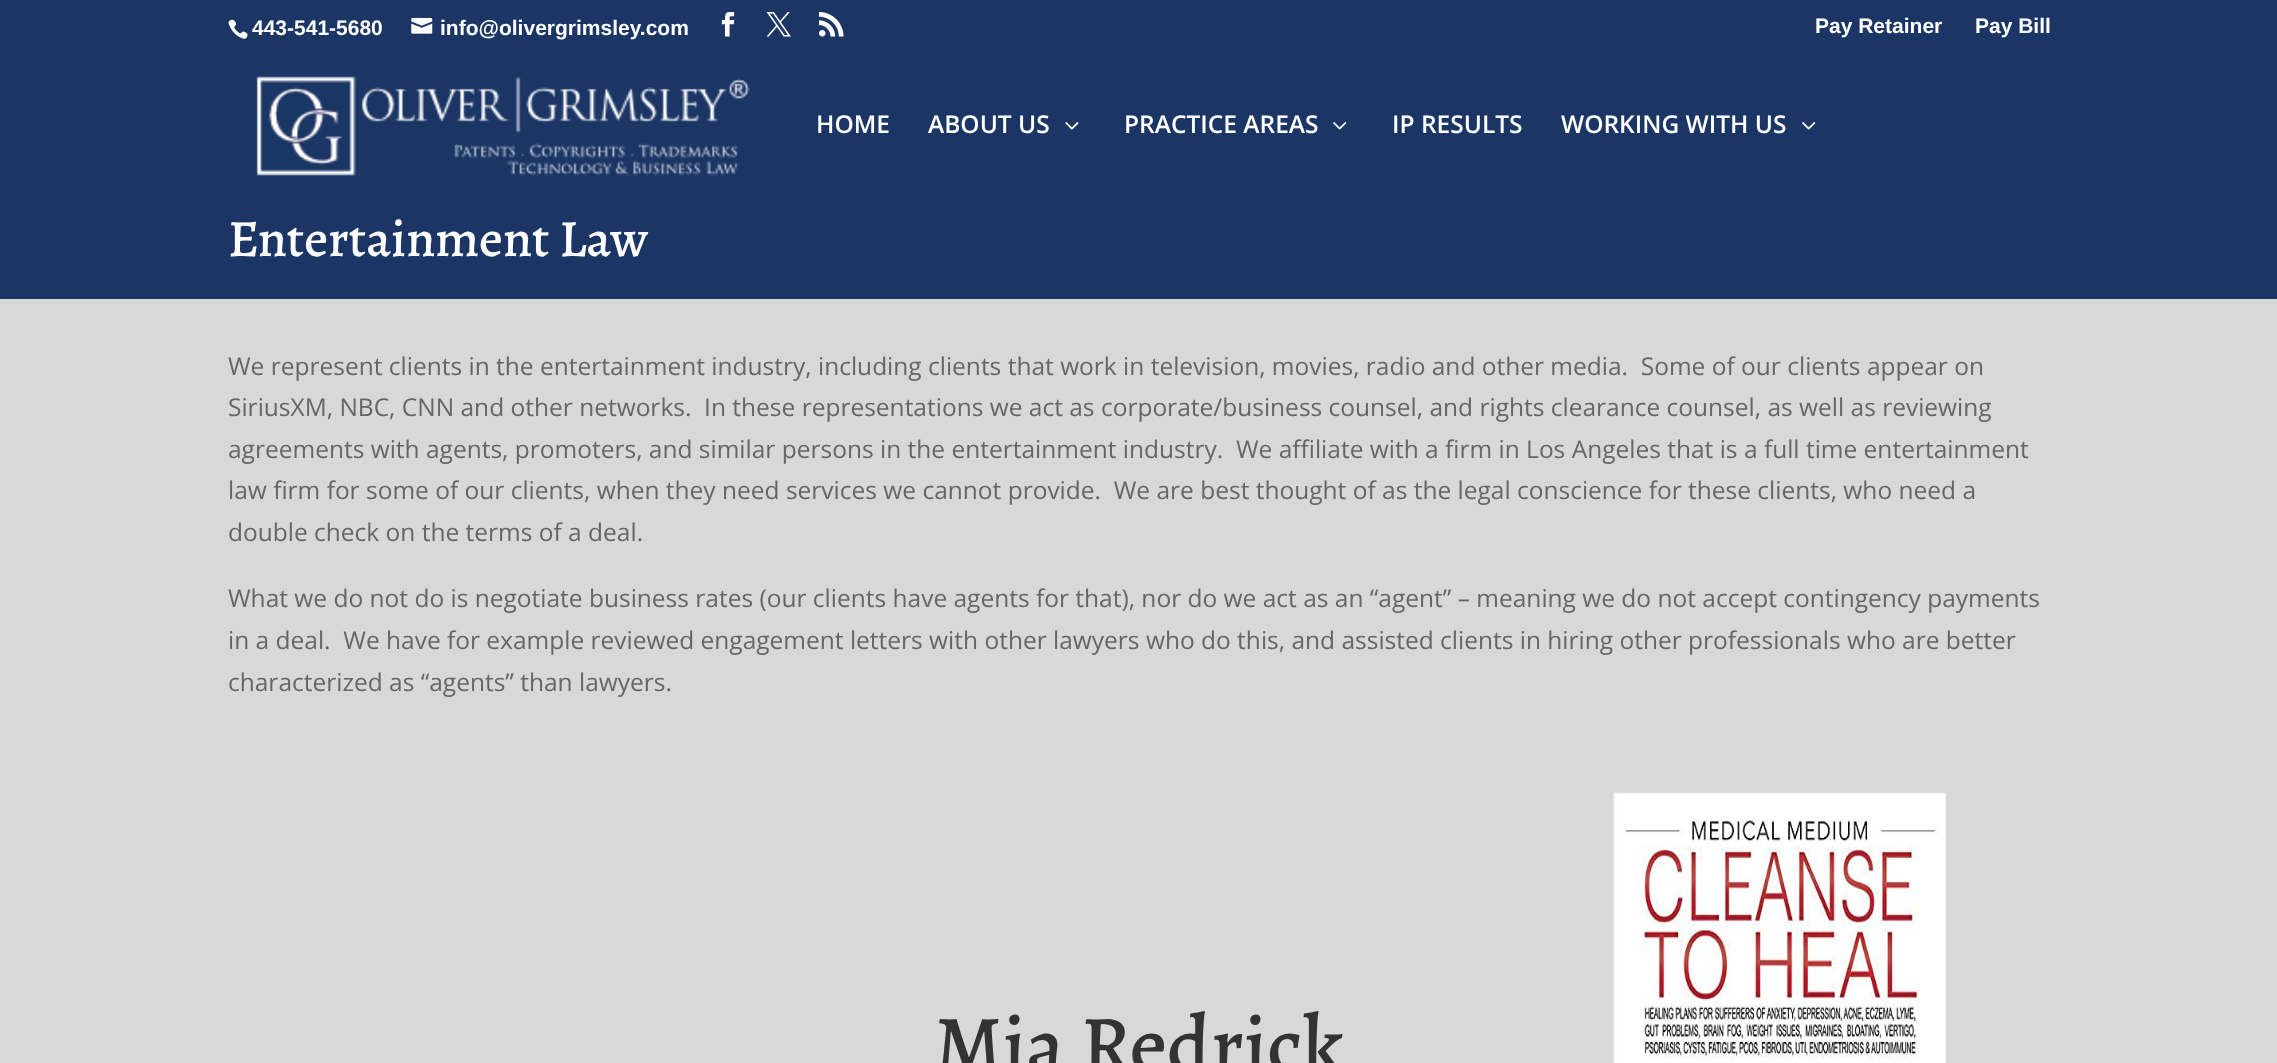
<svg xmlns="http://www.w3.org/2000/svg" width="2277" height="1063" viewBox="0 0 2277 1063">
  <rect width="100%" height="100%" fill="#d8d8d8"/>
  <rect x="0" y="0" width="2277" height="299" fill="#1b3665"/>
  <image x="228" y="19" width="20" height="20" href="img1.png"/>
  <text x="252" y="35" font-family="Liberation Sans" font-size="21" font-weight="bold" fill="#ffffff">443-541-5680</text>
  <image x="411" y="17" width="22" height="17" href="img2.png"/>
  <text x="440" y="35" font-family="Liberation Sans" font-size="21" font-weight="bold" fill="#ffffff">info@olivergrimsley.com</text>
  <image x="721" y="12" width="14" height="25" href="img3.png"/>
  <image x="766" y="12" width="25" height="25" href="img4.png"/>
  <image x="819" y="12" width="25" height="25" href="img5.png"/>
  <text x="1815" y="33" font-family="Liberation Sans" font-size="21" font-weight="bold" fill="#ffffff">Pay Retainer</text>
  <text x="1975" y="33" font-family="Liberation Sans" font-size="21" font-weight="bold" fill="#ffffff">Pay Bill</text>
  <image x="256" y="76" width="494" height="100" href="img6.png"/>
  <text x="816" y="133" font-family="Open Sans" font-size="24.5" font-weight="600" fill="#ffffff">HOME</text>
  <text x="928" y="133" font-family="Open Sans" font-size="24.5" font-weight="600" fill="#ffffff">ABOUT US</text>
  <image x="1065" y="122" width="14" height="8" href="img7.png"/>
  <text x="1124" y="133" font-family="Open Sans" font-size="24.5" font-weight="600" fill="#ffffff">PRACTICE AREAS</text>
  <image x="1333" y="122" width="14" height="8" href="img8.png"/>
  <text x="1392" y="133" font-family="Open Sans" font-size="24.5" font-weight="600" fill="#ffffff">IP RESULTS</text>
  <text x="1561" y="133" font-family="Open Sans" font-size="24.5" font-weight="600" fill="#ffffff">WORKING WITH US</text>
  <image x="1802" y="122" width="14" height="8" href="img8.png"/>
  <text x="228" y="256" font-family="Alegreya" font-size="52.5" font-weight="500" fill="#ffffff">Entertainment Law</text>
  <text x="228" y="375" font-family="Open Sans" font-size="24.5" fill="#666666" xml:space="preserve">We represent clients in the entertainment industry, including clients that work in television, movies, radio and other media.  Some of our clients appear on</text>
  <text x="228" y="416" font-family="Open Sans" font-size="24.5" fill="#666666" xml:space="preserve">SiriusXM, NBC, CNN and other networks.  In these representations we act as corporate/business counsel, and rights clearance counsel, as well as reviewing</text>
  <text x="228" y="458" font-family="Open Sans" font-size="24.5" fill="#666666" xml:space="preserve">agreements with agents, promoters, and similar persons in the entertainment industry.  We affiliate with a firm in Los Angeles that is a full time entertainment</text>
  <text x="228" y="499" font-family="Open Sans" font-size="24.5" fill="#666666" xml:space="preserve">law firm for some of our clients, when they need services we cannot provide.  We are best thought of as the legal conscience for these clients, who need a</text>
  <text x="228" y="541" font-family="Open Sans" font-size="24.5" fill="#666666">double check on the terms of a deal.</text>
  <text x="228" y="607" font-family="Open Sans" font-size="24.5" fill="#666666">What we do not do is negotiate business rates (our clients have agents for that), nor do we act as an “agent” – meaning we do not accept contingency payments</text>
  <text x="228" y="649" font-family="Open Sans" font-size="24.5" fill="#666666" xml:space="preserve">in a deal.  We have for example reviewed engagement letters with other lawyers who do this, and assisted clients in hiring other professionals who are better</text>
  <text x="228" y="691" font-family="Open Sans" font-size="24.5" fill="#666666">characterized as “agents” than lawyers.</text>
  <text x="934" y="1072" font-family="Alegreya" font-size="82.25" font-weight="500" fill="#333333">Mia Redrick</text>
  <image x="1613" y="792" width="333" height="271" href="img9.png"/>
</svg>
